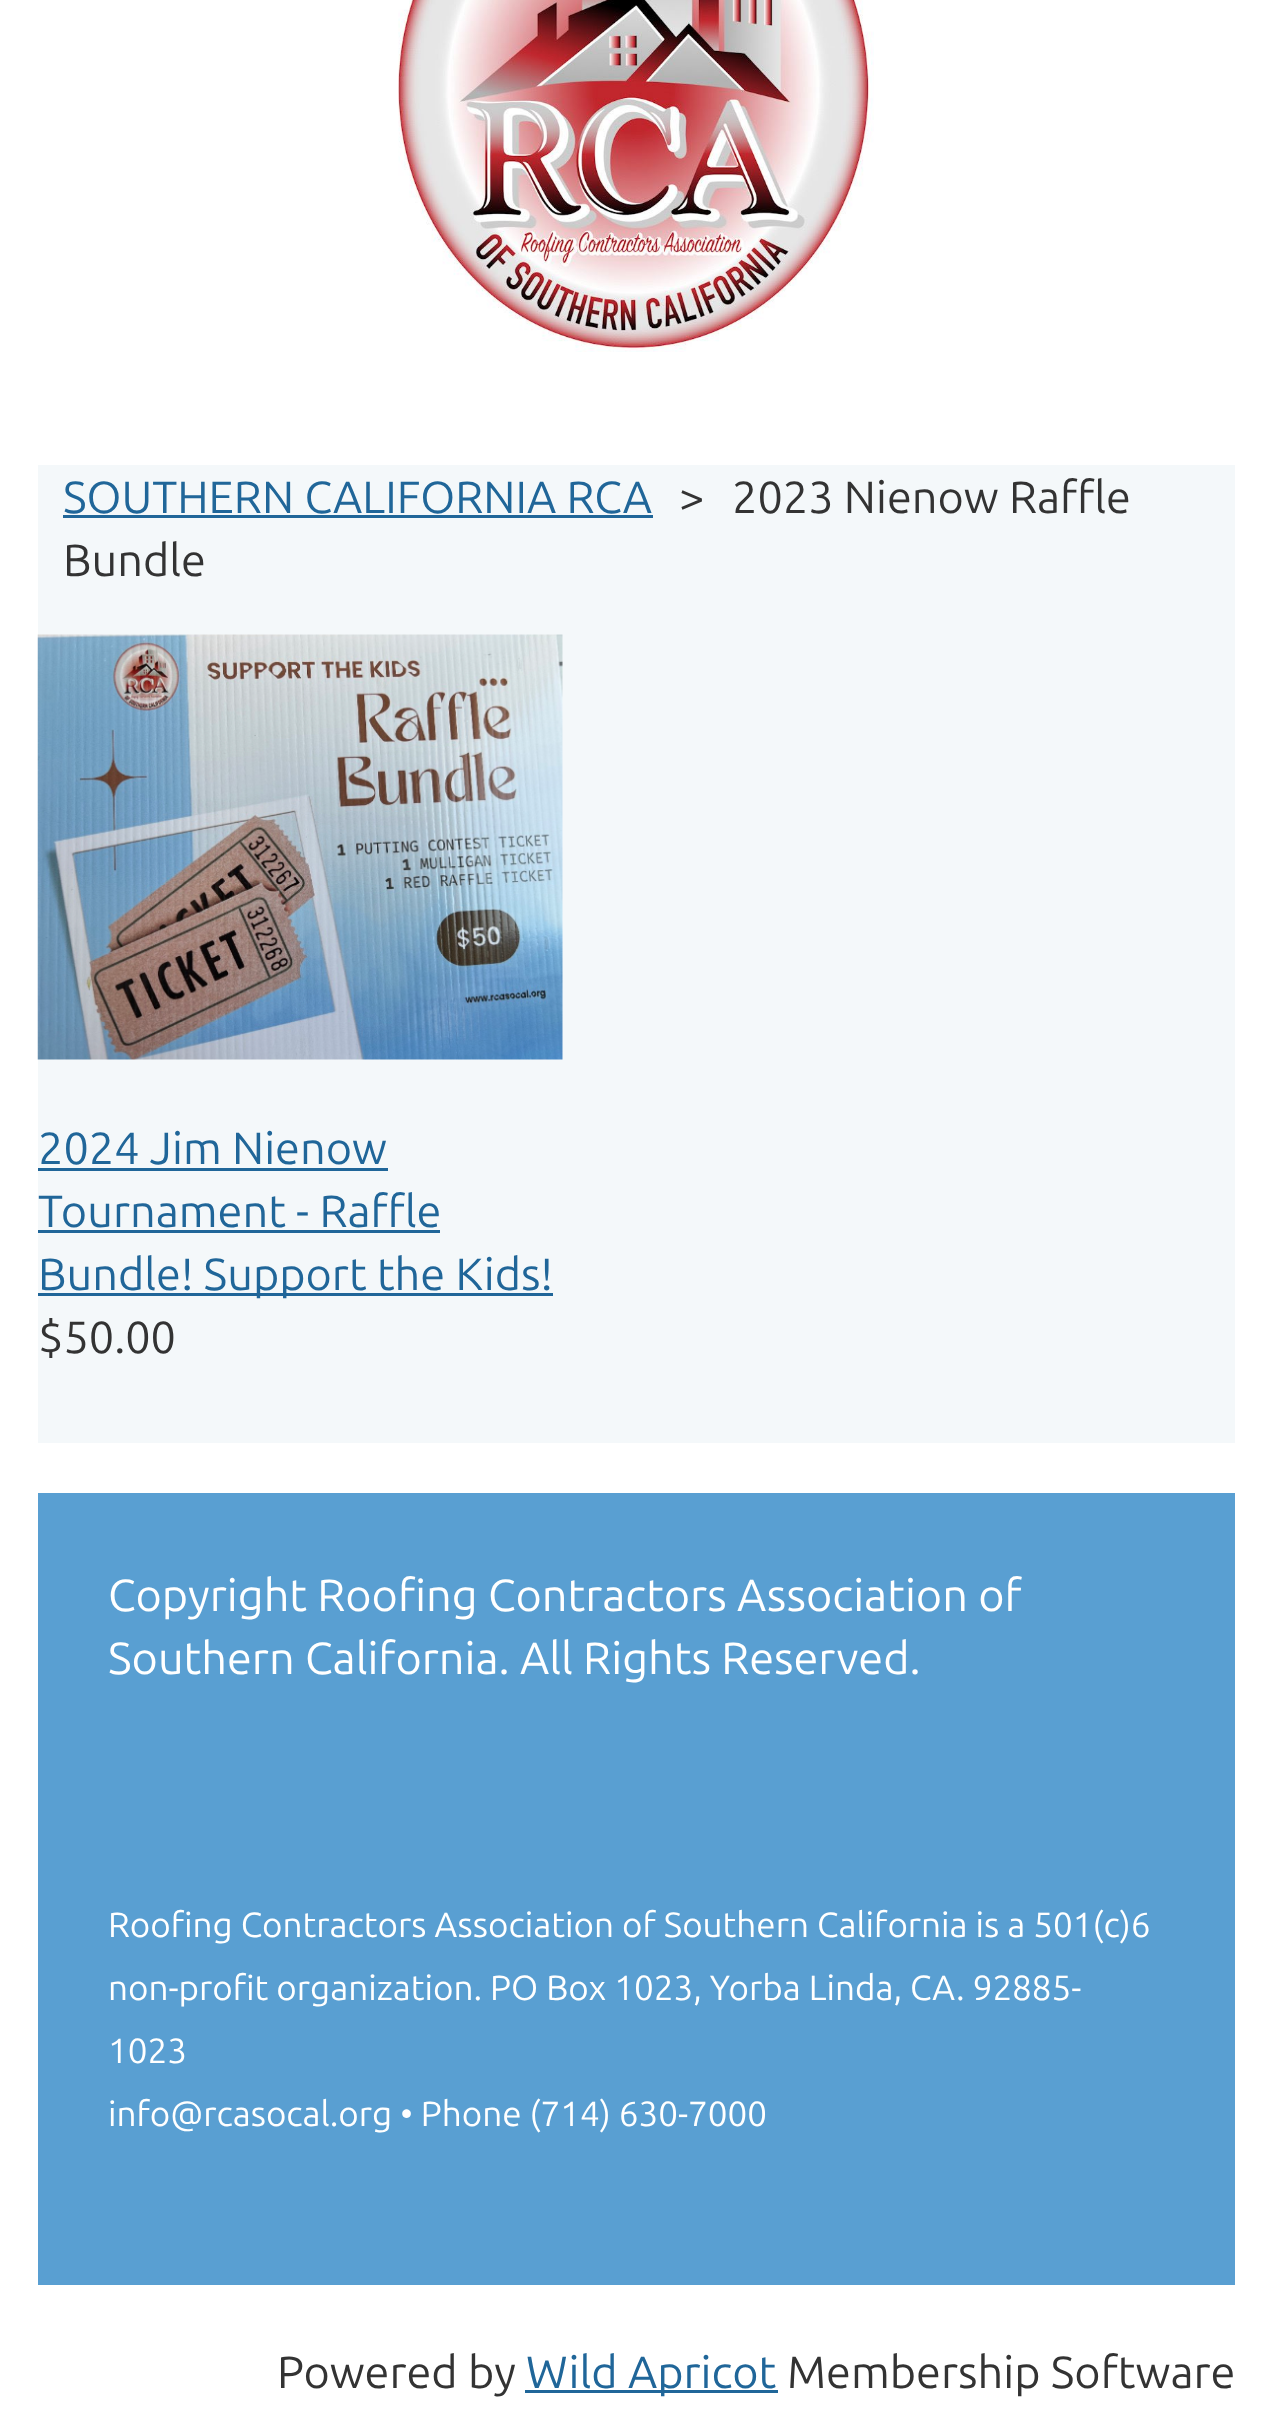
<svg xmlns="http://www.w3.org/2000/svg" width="1271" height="2422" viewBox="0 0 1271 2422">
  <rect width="100%" height="100%" fill="#ffffff"/>
  <image x="398" y="0" width="476" height="352" href="img1.png"/>
  <rect x="38" y="465" width="1197" height="978" fill="#f4f8fa"/>
  <text x="679" y="513" font-family="Ubuntu" font-size="45" fill="#333333">&gt;</text>
  <text x="732" y="513" font-family="Ubuntu" font-size="45" fill="#333333">2023 Nienow Raffle</text>
  <text x="63" y="576" font-family="Ubuntu" font-size="45" fill="#333333">Bundle</text>
  <text x="63" y="513" font-family="Ubuntu" font-size="45" fill="#206699">SOUTHERN CALIFORNIA RCA</text>
  <rect x="63" y="515" width="590" height="3" fill="#206699"/>
  <image x="37" y="634" width="526" height="426" href="img2.png"/>
  <text x="38" y="1164" font-family="Ubuntu" font-size="45" fill="#206699">2024 Jim Nienow</text>
  <rect x="38" y="1168" width="350" height="3" fill="#206699"/>
  <text x="38" y="1227" font-family="Ubuntu" font-size="45" fill="#206699">Tournament - Raffle</text>
  <rect x="38" y="1230" width="402" height="3" fill="#206699"/>
  <rect x="38" y="1293" width="515" height="3" fill="#206699"/>
  <text x="38" y="1290" font-family="Ubuntu" font-size="45" fill="#206699">Bundle! Support the Kids!</text>
  <text x="38" y="1353" font-family="Ubuntu" font-size="45" fill="#333333">$50.00</text>
  <rect x="38" y="1493" width="1197" height="792" fill="#599fd2"/>
  <text x="108" y="1611" font-family="Ubuntu" font-size="45" fill="#ffffff">Copyright Roofing Contractors Association of</text>
  <text x="108" y="1674" font-family="Ubuntu" font-size="45" fill="#ffffff">Southern California. All Rights Reserved.</text>
  <text x="108" y="1937" font-family="Ubuntu" font-size="35" fill="#ffffff">Roofing Contractors Association of Southern California is a 501(c)6</text>
  <text x="108" y="2000" font-family="Ubuntu" font-size="35" fill="#ffffff">non-profit organization. PO Box 1023, Yorba Linda, CA. 92885-</text>
  <text x="108" y="2063" font-family="Ubuntu" font-size="35" fill="#ffffff">1023</text>
  <text x="108" y="2126" font-family="Ubuntu" font-size="35" fill="#ffffff">info@rcasocal.org • Phone (714) 630-7000</text>
  <text x="277" y="2388" font-family="Ubuntu" font-size="45" fill="#333333">Powered by</text>
  <rect x="525" y="2390" width="253" height="3" fill="#206699"/>
  <text x="526" y="2388" font-family="Ubuntu" font-size="45" fill="#206699">Wild Apricot</text>
  <text x="787" y="2388" font-family="Ubuntu" font-size="45" fill="#333333">Membership Software</text>
</svg>
